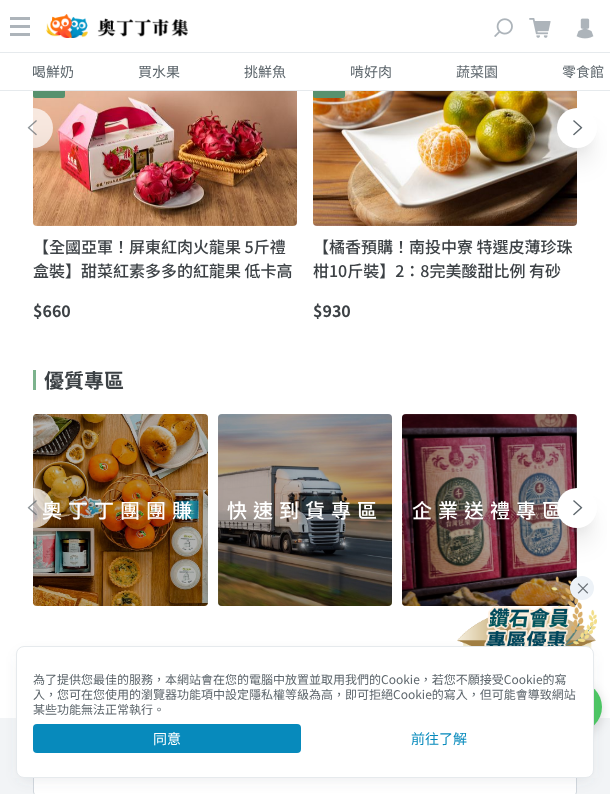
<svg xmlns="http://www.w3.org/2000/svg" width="610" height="794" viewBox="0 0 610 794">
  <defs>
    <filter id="blur1" x="-50%" y="-200%" width="200%" height="500%"><feGaussianBlur stdDeviation="5"/></filter>
    <filter id="blur2" x="-50%" y="-200%" width="200%" height="500%"><feGaussianBlur stdDeviation="12.5"/></filter>
    <filter id="blur3" x="-50%" y="-200%" width="200%" height="500%"><feGaussianBlur stdDeviation="6"/></filter>
    <filter id="blur4" x="-50%" y="-200%" width="200%" height="500%"><feGaussianBlur stdDeviation="7.5"/></filter>
  </defs>
  <rect width="100%" height="100%" fill="#ffffff"/>
  <image x="33" y="91" width="264" height="135" href="img7.png"/>
  <rect x="33" y="72" width="32" height="26" rx="2" fill="#57916e"/>
  <image x="313" y="91" width="264" height="135" href="img8.png"/>
  <rect x="313" y="72" width="32" height="26" rx="2" fill="#57916e"/>
  <rect x="33" y="72" width="312" height="18" fill="#ffffff"/>
  <rect x="0" y="52" width="610" height="1" fill="#e6eaed"/>
  <rect x="10" y="17" width="20" height="3" fill="#adb4ba"/>
  <rect x="10" y="25" width="20" height="3" fill="#adb4ba"/>
  <rect x="10" y="33" width="20" height="3" fill="#adb4ba"/>
  <image x="46" y="14" width="142" height="24" href="img1.png"/>
  <image x="494" y="18" width="19" height="19" href="img2.png"/>
  <image x="529" y="18" width="22" height="20" href="img3.png"/>
  <image x="576" y="18" width="18" height="21" href="img4.png"/>
  <rect x="0" y="90" width="610" height="1" fill="#e6eaed"/>
  <text x="32" y="77" font-family="Noto Sans TC" font-size="14" fill="#5c656b">喝鮮奶</text>
  <text x="138" y="77" font-family="Noto Sans TC" font-size="14" fill="#5c656b">買水果</text>
  <text x="244" y="77" font-family="Noto Sans TC" font-size="14" fill="#5c656b">挑鮮魚</text>
  <text x="350" y="77" font-family="Noto Sans TC" font-size="14" fill="#5c656b">啃好肉</text>
  <text x="456" y="77" font-family="Noto Sans TC" font-size="14" fill="#5c656b">蔬菜園</text>
  <text x="562" y="77" font-family="Noto Sans TC" font-size="14" fill="#5c656b">零食館</text>
  <circle cx="33" cy="128" r="20" fill="#ffffff" fill-opacity="0.7"/>
  <image x="27" y="120" width="10" height="16" href="img5.png"/>
  <rect x="562" y="123" width="30" height="30" rx="15" fill="#000000" fill-opacity="0.04" filter="url(#blur1)"/>
  <rect x="562" y="133" width="30" height="30" rx="15" fill="#000000" fill-opacity="0.1" filter="url(#blur2)"/>
  <circle cx="577" cy="128" r="20" fill="#ffffff"/>
  <image x="573" y="120" width="10" height="16" href="img6.png"/>
  <text x="33" y="253" font-family="Noto Sans TC" font-size="16" font-weight="500" fill="#3c4145">【全國亞軍！屏東紅肉火龍果 5斤禮</text>
  <text x="33" y="277" font-family="Noto Sans TC" font-size="16" font-weight="500" fill="#3c4145">盒裝】甜菜紅素多多的紅龍果 低卡高</text>
  <text x="33" y="317" font-family="Noto Sans TC" font-size="16" font-weight="bold" fill="#3c4145">$660</text>
  <text x="313" y="253" font-family="Noto Sans TC" font-size="16" font-weight="500" fill="#3c4145">【橘香預購！南投中寮 特選皮薄珍珠</text>
  <text x="313" y="277" font-family="Noto Sans TC" font-size="16" font-weight="500" fill="#3c4145">柑10斤裝】2：8完美酸甜比例 有砂</text>
  <text x="313" y="317" font-family="Noto Sans TC" font-size="16" font-weight="bold" fill="#3c4145">$930</text>
  <rect x="33" y="370" width="3" height="20" fill="#7cb38d"/>
  <text x="44" y="388" font-family="Noto Sans TC" font-size="20" font-weight="bold" fill="#3c4145">優質專區</text>
  <image x="33" y="414" width="175" height="192" href="img10.png"/>
  <rect x="33" y="414" width="175" height="192" rx="4" fill="#000000" fill-opacity="0.3"/>
  <text x="42" y="518" font-family="Noto Sans TC" font-size="20" font-weight="500" letter-spacing="6" fill="#ffffff">奧丁丁團團賺</text>
  <circle cx="33" cy="508" r="20" fill="#ffffff" fill-opacity="0.7"/>
  <image x="27" y="500" width="10" height="16" href="img9.png"/>
  <image x="218" y="414" width="174" height="192" href="img11.png"/>
  <rect x="218" y="414" width="174" height="192" rx="4" fill="#000000" fill-opacity="0.3"/>
  <text x="227" y="518" font-family="Noto Sans TC" font-size="20" font-weight="500" letter-spacing="6" fill="#ffffff">快速到貨專區</text>
  <image x="402" y="414" width="175" height="192" href="img12.png"/>
  <rect x="402" y="414" width="175" height="192" rx="4" fill="#000000" fill-opacity="0.3"/>
  <text x="412" y="518" font-family="Noto Sans TC" font-size="20" font-weight="500" letter-spacing="6" fill="#ffffff">企業送禮專區</text>
  <rect x="562" y="503" width="30" height="30" rx="15" fill="#000000" fill-opacity="0.04" filter="url(#blur1)"/>
  <rect x="562" y="513" width="30" height="30" rx="15" fill="#000000" fill-opacity="0.1" filter="url(#blur2)"/>
  <circle cx="577" cy="508" r="20" fill="#ffffff"/>
  <image x="573" y="500" width="10" height="16" href="img6.png"/>
  <image x="457" y="576" width="140" height="73" href="img13.png"/>
  <circle cx="582" cy="588" r="12" fill="#edf2f7"/>
  <image x="577" y="583" width="12" height="11" href="img14.png"/>
  <rect x="0" y="718" width="610" height="76" fill="#f2f4f6"/>
  <rect x="552" y="685" width="50" height="50" rx="25" fill="#000000" fill-opacity="0.15" filter="url(#blur3)"/>
  <circle cx="577" cy="707" r="25" fill="#4dc764"/>
  <rect x="33.5" y="762.5" width="543" height="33" rx="3.5" fill="#ffffff" stroke="#d1d7dd"/>
  <rect x="21" y="656" width="568" height="122" rx="3" fill="#5c656b" fill-opacity="0.15" filter="url(#blur4)"/>
  <rect x="16.5" y="646.5" width="577" height="131" rx="7.5" fill="#ffffff" stroke="#e6eaed"/>
  <text x="33" y="684" font-family="Noto Sans TC" font-size="12" fill="#5c656b">為了提供您最佳的服務，本網站會在您的電腦中放置並取用我們的Cookie，若您不願接受Cookie的寫</text>
  <text x="33" y="699" font-family="Noto Sans TC" font-size="12" fill="#5c656b">入，您可在您使用的瀏覽器功能項中設定隱私權等級為高，即可拒絕Cookie的寫入，但可能會導致網站</text>
  <text x="33" y="714" font-family="Noto Sans TC" font-size="12" fill="#5c656b">某些功能無法正常執行。</text>
  <rect x="33" y="724" width="268" height="29" rx="4" fill="#078abc"/>
  <text x="153" y="744" font-family="Noto Sans TC" font-size="14" fill="#ffffff">同意</text>
  <text x="411" y="744" font-family="Noto Sans TC" font-size="14" fill="#078abc">前往了解</text>
</svg>
